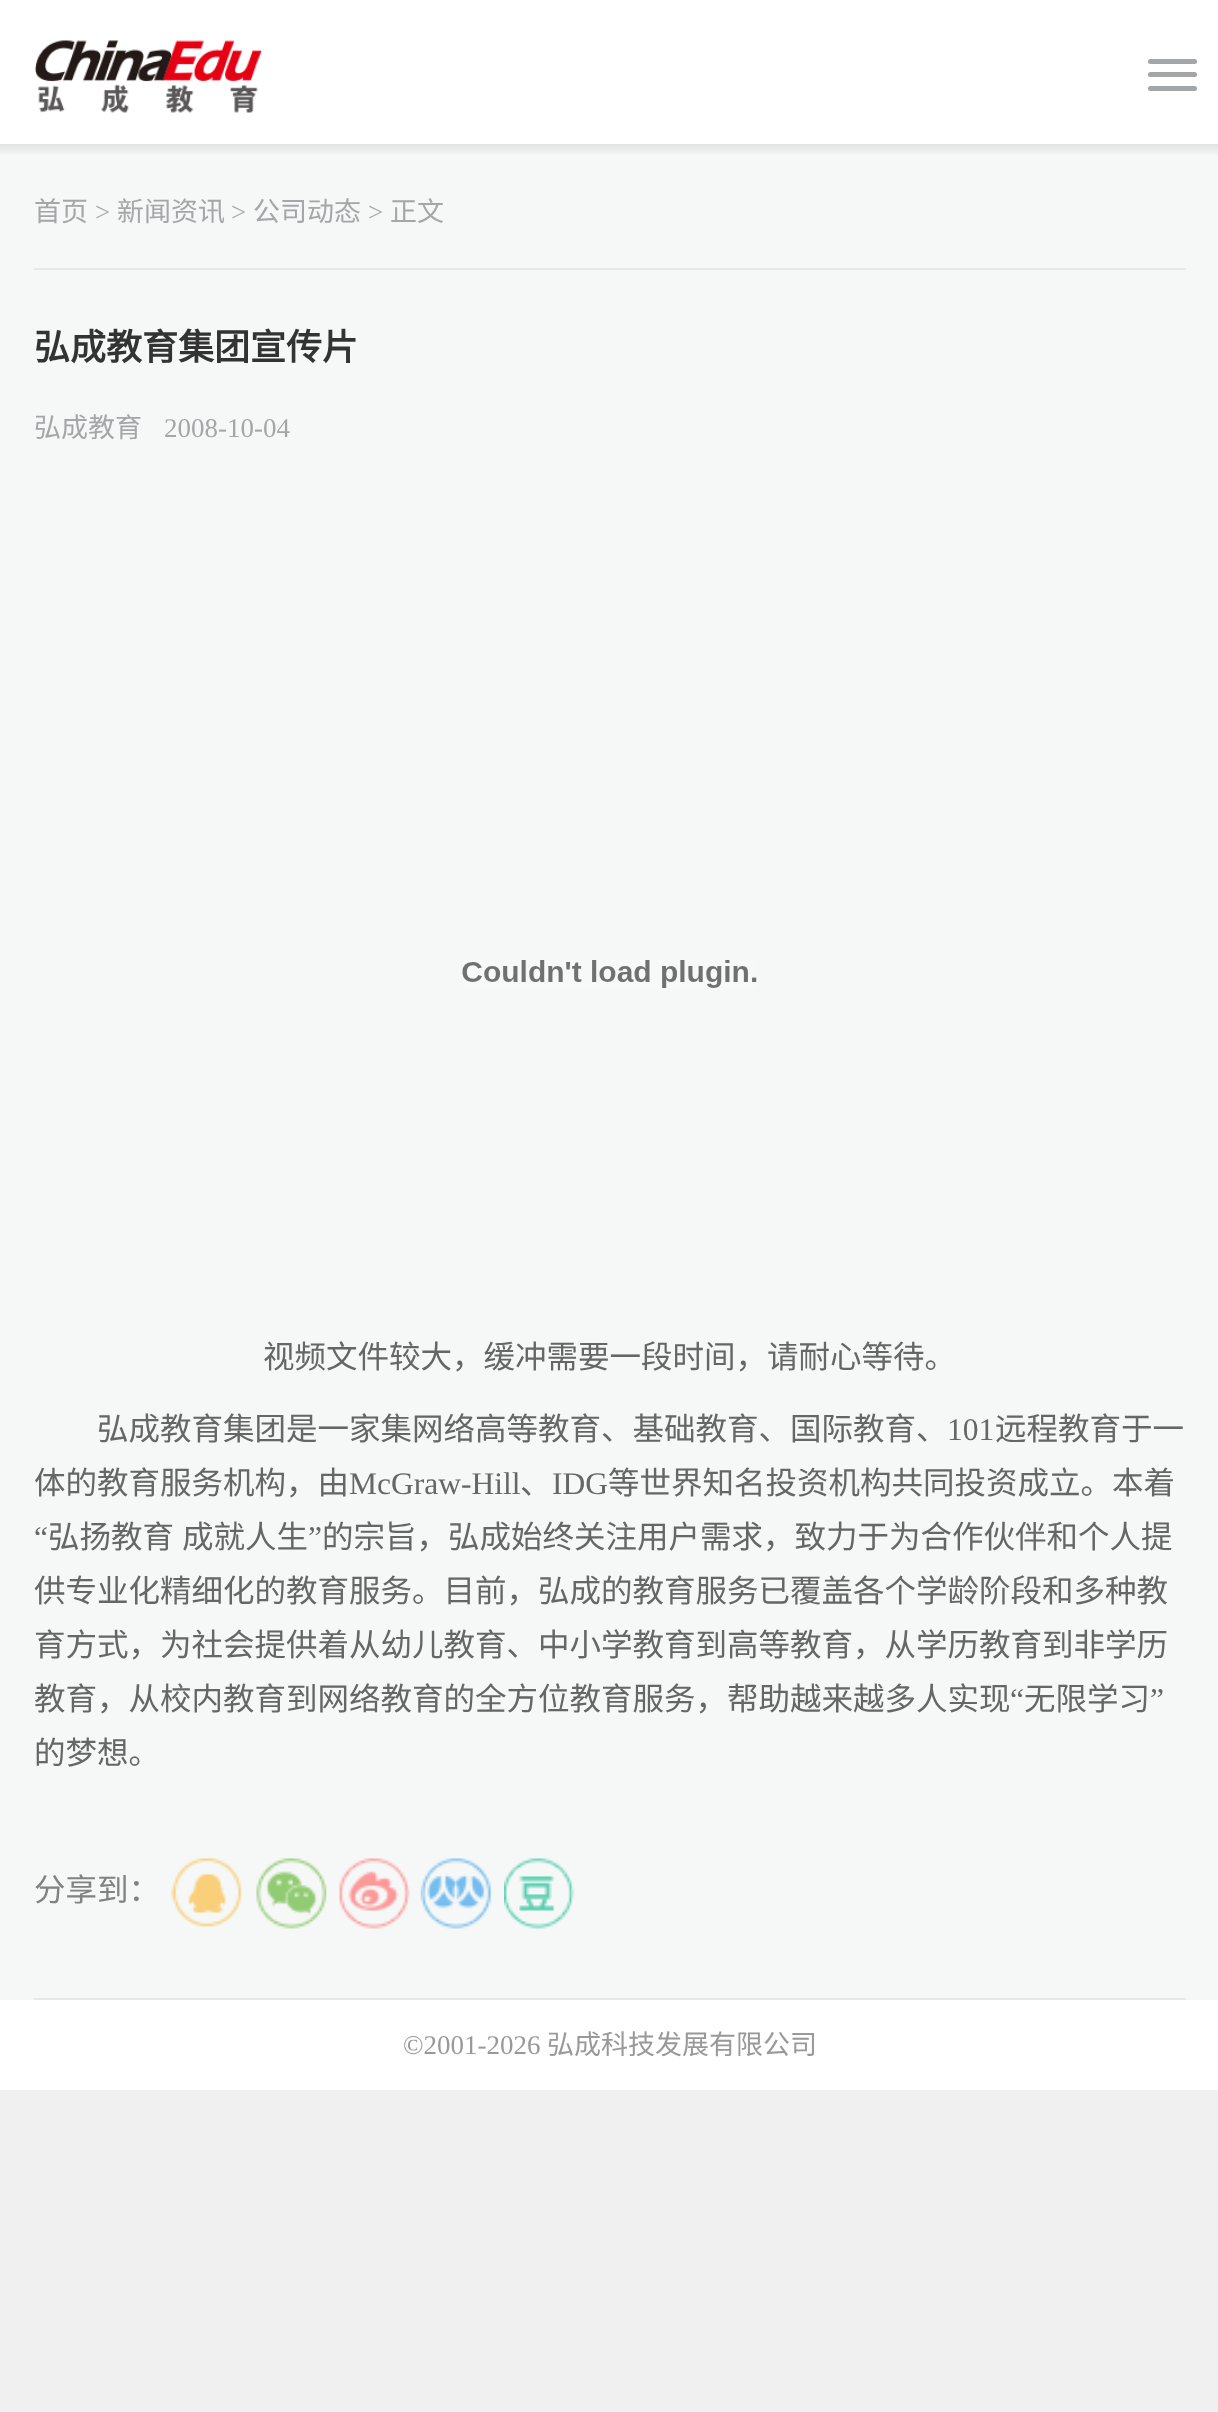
<svg xmlns="http://www.w3.org/2000/svg" width="1218" height="2412" viewBox="0 0 1218 2412">
  <defs>
    <clipPath id="clip1"><rect x="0" y="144" width="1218" height="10"/></clipPath>
    <filter id="blur1" x="-50%" y="-200%" width="200%" height="500%"><feGaussianBlur stdDeviation="5.5"/></filter>
  </defs>
  <rect width="100%" height="100%" fill="#f0f0f0"/>
  <rect x="0" y="0" width="1218" height="144" fill="#ffffff"/>
  <image x="34" y="40" width="228" height="73" href="img1.png"/>
  <rect x="0" y="144" width="1218" height="1856" fill="#f6f7f7"/>
  <g clip-path="url(#clip1)">
    <rect x="-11" y="5" width="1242" height="144" fill="#000000" fill-opacity="0.1" filter="url(#blur1)"/>
  </g>
  <rect x="1148" y="59" width="49" height="5" rx="2.5" fill="#a3a6a9"/>
  <rect x="1148" y="72" width="49" height="5" rx="2.5" fill="#a3a6a9"/>
  <rect x="1148" y="86" width="49" height="5" rx="2.5" fill="#a3a6a9"/>
  <text x="34" y="221" font-family="Noto Sans CJK SC" font-size="27" fill="#a5a6a8">首页</text>
  <text x="95" y="221" font-family="Liberation Serif" font-size="27" fill="#a5a6a8">&gt;</text>
  <text x="117" y="221" font-family="Noto Sans CJK SC" font-size="27" fill="#a5a6a8">新闻资讯</text>
  <text x="231" y="221" font-family="Liberation Serif" font-size="27" fill="#a5a6a8">&gt;</text>
  <text x="253" y="221" font-family="Noto Sans CJK SC" font-size="27" fill="#a5a6a8">公司动态</text>
  <text x="368" y="221" font-family="Liberation Serif" font-size="27" fill="#a5a6a8">&gt;</text>
  <text x="390" y="221" font-family="Noto Sans CJK SC" font-size="27" fill="#a5a6a8">正文</text>
  <rect x="34" y="268" width="1152" height="2" fill="#e7e7e7"/>
  <text x="34" y="360" font-family="Noto Sans CJK SC" font-size="36" font-weight="bold" fill="#333333">弘成教育集团宣传片</text>
  <text x="34" y="437" font-family="Noto Sans CJK SC" font-size="27" fill="#a5a6a8">弘成教育</text>
  <text x="164" y="437" font-family="Liberation Serif" font-size="27" fill="#a5a6a8">2008-10-04</text>
  <image x="462" y="960" width="295" height="28" href="img2.png"/>
  <text x="263" y="1368" font-family="Noto Sans CJK SC" font-size="31.5" fill="#666666">视频文件较大，缓冲需要一段时间，请耐心等待。</text>
  <text x="97" y="1440" font-family="Noto Sans CJK SC" font-size="31.5" fill="#666666">弘成教育集团是一家集网络高等教育、基础教育、国际教育、</text>
  <text x="947" y="1440" font-family="Liberation Serif" font-size="31.5" fill="#666666">101</text>
  <text x="995" y="1440" font-family="Noto Sans CJK SC" font-size="31.5" fill="#666666">远程教育于一</text>
  <text x="34" y="1494" font-family="Noto Sans CJK SC" font-size="31.5" fill="#666666">体的教育服务机构，由</text>
  <text x="349" y="1494" font-family="Liberation Serif" font-size="31.5" fill="#666666">McGraw-Hill</text>
  <text x="520" y="1494" font-family="Noto Sans CJK SC" font-size="31.5" fill="#666666">、</text>
  <text x="552" y="1494" font-family="Liberation Serif" font-size="31.5" fill="#666666">IDG</text>
  <text x="608" y="1494" font-family="Noto Sans CJK SC" font-size="31.5" fill="#666666">等世界知名投资机构共同投资成立。本着</text>
  <text x="34" y="1548" font-family="Liberation Serif" font-size="31.5" fill="#666666">“</text>
  <text x="48" y="1548" word-spacing="1" font-family="Noto Sans CJK SC" font-size="31.5" fill="#666666">弘扬教育 成就人生</text>
  <text x="308" y="1548" font-family="Liberation Serif" font-size="31.5" fill="#666666">”</text>
  <text x="322" y="1548" font-family="Noto Sans CJK SC" font-size="31.5" fill="#666666">的宗旨，弘成始终关注用户需求，致力于为合作伙伴和个人提</text>
  <text x="34" y="1602" font-family="Noto Sans CJK SC" font-size="31.5" fill="#666666">供专业化精细化的教育服务。目前，弘成的教育服务已覆盖各个学龄阶段和多种教</text>
  <text x="34" y="1656" font-family="Noto Sans CJK SC" font-size="31.5" fill="#666666">育方式，为社会提供着从幼儿教育、中小学教育到高等教育，从学历教育到非学历</text>
  <text x="34" y="1710" font-family="Noto Sans CJK SC" font-size="31.5" fill="#666666">教育，从校内教育到网络教育的全方位教育服务，帮助越来越多人实现</text>
  <text x="1010" y="1710" font-family="Liberation Serif" font-size="31.5" fill="#666666">“</text>
  <text x="1024" y="1710" font-family="Noto Sans CJK SC" font-size="31.5" fill="#666666">无限学习</text>
  <text x="1150" y="1710" font-family="Liberation Serif" font-size="31.5" fill="#666666">”</text>
  <text x="34" y="1764" font-family="Noto Sans CJK SC" font-size="31.5" fill="#666666">的梦想。</text>
  <rect x="34" y="1998" width="1152" height="2" fill="#e7e7e7"/>
  <text x="34" y="1901" font-family="Noto Sans CJK SC" font-size="31.5" fill="#828282">分享到：</text>
  <image x="171" y="1858" width="71" height="69" href="img3.png"/>
  <image x="256" y="1858" width="71" height="71" href="img4.png"/>
  <image x="339" y="1858" width="71" height="71" href="img5.png"/>
  <image x="420" y="1858" width="72" height="71" href="img6.png"/>
  <image x="504" y="1858" width="71" height="71" href="img7.png"/>
  <rect x="0" y="2000" width="1218" height="90" fill="#ffffff"/>
  <text x="403" y="2054" font-family="Liberation Serif" font-size="27" fill="#999999">©2001-2026</text>
  <text x="547" y="2054" font-family="Noto Sans CJK SC" font-size="27" fill="#999999">弘成科技发展有限公司</text>
</svg>
